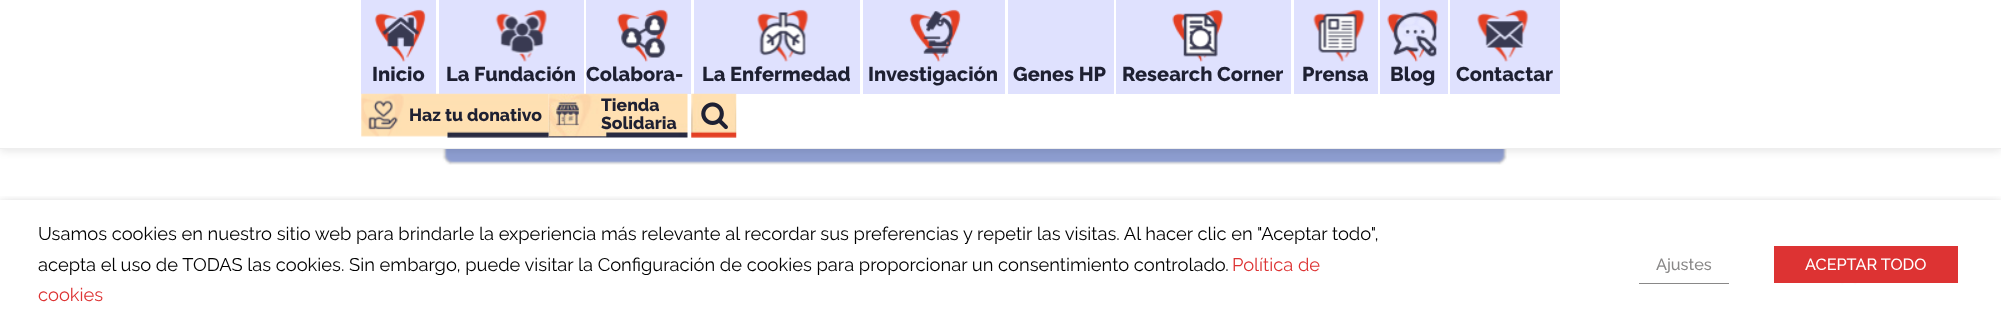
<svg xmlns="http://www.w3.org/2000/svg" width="2001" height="328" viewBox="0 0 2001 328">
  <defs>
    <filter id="blur1" x="-50%" y="-200%" width="200%" height="500%"><feGaussianBlur stdDeviation="4.5"/></filter>
    <clipPath id="clip1"><rect x="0" y="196" width="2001" height="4"/></clipPath>
    <filter id="blur2" x="-50%" y="-200%" width="200%" height="500%"><feGaussianBlur stdDeviation="6"/></filter>
  </defs>
  <rect width="100%" height="100%" fill="#ffffff"/>
  <image x="442" y="149" width="1065" height="16" href="img14.png"/>
  <rect x="0" y="3" width="2001" height="148" fill="#000000" fill-opacity="0.1" filter="url(#blur1)"/>
  <rect x="0" y="0" width="2001" height="148" fill="#ffffff"/>
  <rect x="0" y="148" width="2001" height="1" fill="#eeeeee"/>
  <rect x="361" y="0" width="75" height="94" fill="#dfe1fe"/>
  <image x="374" y="9" width="52" height="53" href="img1.png"/>
  <text x="372" y="81" font-family="Raleway" font-size="20" font-weight="800" fill="#1e2032">Inicio</text>
  <rect x="439" y="0" width="145" height="94" fill="#dfe1fe"/>
  <image x="495" y="9" width="52" height="53" href="img2.png"/>
  <text x="446" y="81" font-family="Raleway" font-size="20" font-weight="800" fill="#1e2032">La Fundación</text>
  <rect x="586" y="0" width="105" height="94" fill="#dfe1fe"/>
  <image x="617" y="9" width="51" height="53" href="img3.png"/>
  <text x="586" y="81" font-family="Raleway" font-size="20" font-weight="800" fill="#1e2032">Colabora-</text>
  <rect x="694" y="0" width="166" height="94" fill="#dfe1fe"/>
  <image x="757" y="9" width="52" height="53" href="img4.png"/>
  <text x="702" y="81" font-family="Raleway" font-size="20" font-weight="800" fill="#1e2032">La Enfermedad</text>
  <rect x="863" y="0" width="142" height="94" fill="#dfe1fe"/>
  <image x="909" y="9" width="52" height="53" href="img5.png"/>
  <text x="868" y="81" font-family="Raleway" font-size="20" font-weight="800" fill="#1e2032">Investigación</text>
  <rect x="1008" y="0" width="106" height="94" fill="#dfe1fe"/>
  <text x="1013" y="81" font-family="Raleway" font-size="20" font-weight="800" fill="#1e2032">Genes HP</text>
  <rect x="1116" y="0" width="175" height="94" fill="#dfe1fe"/>
  <image x="1172" y="9" width="51" height="53" href="img6.png"/>
  <text x="1122" y="81" font-family="Raleway" font-size="20" font-weight="800" fill="#1e2032">Research Corner</text>
  <rect x="1294" y="0" width="84" height="94" fill="#dfe1fe"/>
  <image x="1313" y="9" width="52" height="53" href="img7.png"/>
  <text x="1302" y="81" font-family="Raleway" font-size="20" font-weight="800" fill="#1e2032">Prensa</text>
  <rect x="1380" y="0" width="68" height="94" fill="#dfe1fe"/>
  <image x="1387" y="9" width="51" height="53" href="img8.png"/>
  <text x="1390" y="81" font-family="Raleway" font-size="20" font-weight="800" fill="#1e2032">Blog</text>
  <rect x="1450" y="0" width="110" height="94" fill="#dfe1fe"/>
  <image x="1477" y="9" width="52" height="53" href="img9.png"/>
  <text x="1456" y="81" font-family="Raleway" font-size="20" font-weight="800" fill="#1e2032">Contactar</text>
  <image x="361" y="93" width="188" height="45" href="img10.png"/>
  <text x="409" y="121" font-family="Raleway" font-size="17.5" font-weight="800" fill="#1e2032">Haz tu donativo</text>
  <image x="548" y="93" width="140" height="45" href="img11.png"/>
  <text x="601" y="111" font-family="Raleway" font-size="17.5" font-weight="800" fill="#1e2032">Tienda</text>
  <text x="601" y="129" font-family="Raleway" font-size="17.5" font-weight="800" fill="#1e2032">Solidaria</text>
  <image x="691" y="93" width="46" height="45" href="img12.png"/>
  <image x="701" y="102" width="27" height="28" href="img13.png"/>
  <image x="1840" y="283" width="18" height="2" href="img15.png"/>
  <g clip-path="url(#clip1)">
    <rect x="0" y="206" width="2001" height="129" fill="#000000" fill-opacity="0.5" filter="url(#blur2)"/>
  </g>
  <text x="38" y="240" font-family="Raleway" font-size="18.33" fill="#000000">Usamos cookies en nuestro sitio web para brindarle la experiencia más relevante al recordar sus preferencias y repetir las visitas. Al hacer clic en "Aceptar todo",</text>
  <text x="38" y="271" font-family="Raleway" font-size="18.33" fill="#000000">acepta el uso de TODAS las cookies. Sin embargo, puede visitar la Configuración de cookies para proporcionar un consentimiento controlado.</text>
  <text x="1232" y="271" font-family="Raleway" font-size="18.33" fill="#dd3333">Política de</text>
  <text x="38" y="301" font-family="Raleway" font-size="18.33" fill="#dd3333">cookies</text>
  <rect x="1639" y="283" width="90" height="1" fill="#898888"/>
  <text x="1656" y="270" font-family="Raleway" font-size="16.25" font-weight="500" fill="#898888">Ajustes</text>
  <rect x="1774" y="246" width="184" height="37" fill="#dd3333"/>
  <text x="1805" y="270" font-family="Raleway" font-size="16.25" font-weight="500" fill="#ffffff">ACEPTAR TODO</text>
</svg>
